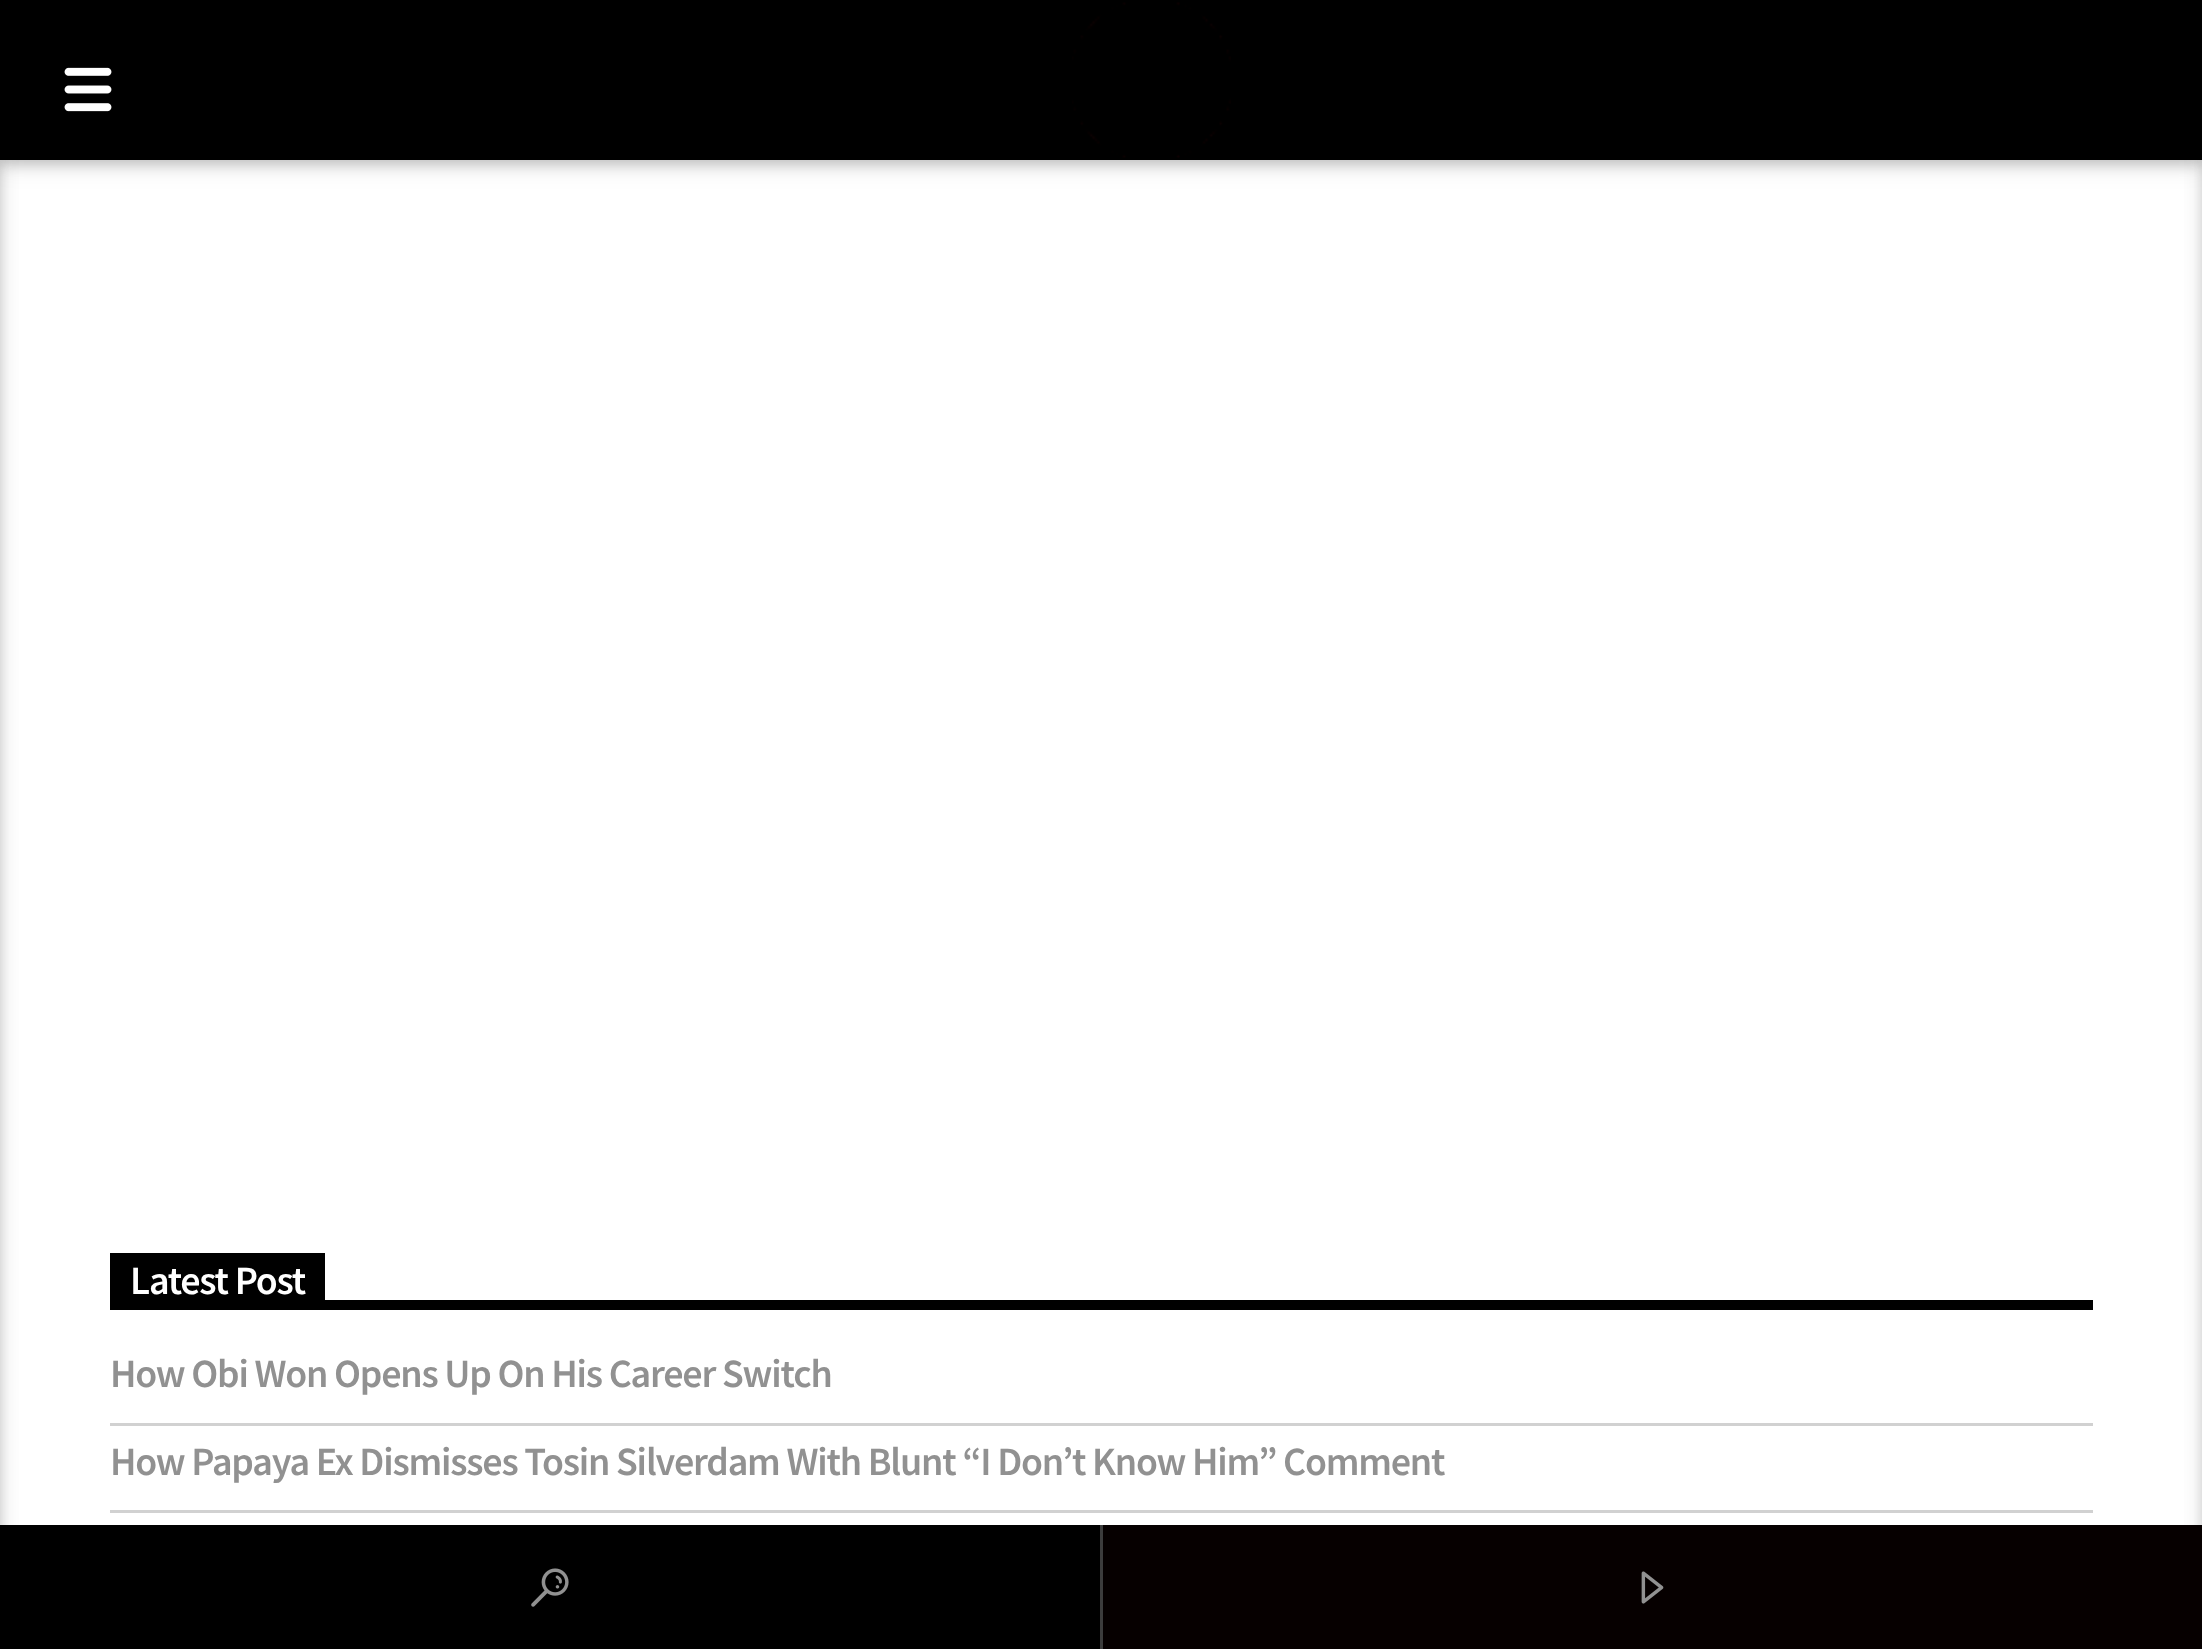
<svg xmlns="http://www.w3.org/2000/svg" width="2202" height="1649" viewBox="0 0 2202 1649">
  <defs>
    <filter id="blur1" x="-50%" y="-200%" width="200%" height="500%"><feGaussianBlur stdDeviation="12.5"/></filter>
    <filter id="blur2" x="-50%" y="-200%" width="200%" height="500%"><feGaussianBlur stdDeviation="6"/></filter>
  </defs>
  <rect width="100%" height="100%" fill="#ffffff"/>
  <rect x="0" y="5" width="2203" height="160" fill="#000000" fill-opacity="0.12" filter="url(#blur1)"/>
  <rect x="0" y="5" width="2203" height="160" fill="#000000" fill-opacity="0.16" filter="url(#blur2)"/>
  <rect x="0" y="0" width="2202" height="160" fill="#000000"/>
  <image x="64" y="67" width="48" height="45" href="img1.png"/>
  <image x="1072" y="2" width="159" height="156" href="img2.png"/>
  <rect x="0" y="1525" width="1100" height="124" fill="#000000"/>
  <rect x="-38" y="5" width="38" height="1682" fill="#000000" fill-opacity="0.12" filter="url(#blur1)"/>
  <rect x="-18" y="5" width="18" height="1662" fill="#000000" fill-opacity="0.16" filter="url(#blur2)"/>
  <rect x="110" y="1300" width="1983" height="10" fill="#000000"/>
  <rect x="110" y="1253" width="215" height="47" fill="#000000"/>
  <text x="130" y="1294" font-family="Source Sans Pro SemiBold" font-size="40" font-weight="600" letter-spacing="-1.2" fill="#ffffff">Latest Post</text>
  <rect x="110" y="1423" width="1983" height="3" fill="#d1d1d1"/>
  <text x="110" y="1387" font-family="Source Sans Pro SemiBold" font-size="40" font-weight="600" letter-spacing="-1.2" fill="#919191">How Obi Won Opens Up On His Career Switch</text>
  <rect x="110" y="1510" width="1983" height="3" fill="#d1d1d1"/>
  <text x="110" y="1475" font-family="Source Sans Pro SemiBold" font-size="40" font-weight="600" letter-spacing="-1.2" fill="#919191">How Papaya Ex Dismisses Tosin Silverdam With Blunt “I Don’t Know Him” Comment</text>
  <rect x="1103" y="1525" width="1099" height="124" fill="#060000"/>
  <rect x="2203" y="5" width="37" height="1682" fill="#000000" fill-opacity="0.12" filter="url(#blur1)"/>
  <rect x="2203" y="5" width="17" height="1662" fill="#000000" fill-opacity="0.16" filter="url(#blur2)"/>
  <rect x="1100" y="1525" width="3" height="124" fill="#3c3c3c"/>
  <image x="531" y="1568" width="38" height="39" href="img3.png"/>
  <image x="1641" y="1571" width="23" height="33" href="img4.png"/>
</svg>
